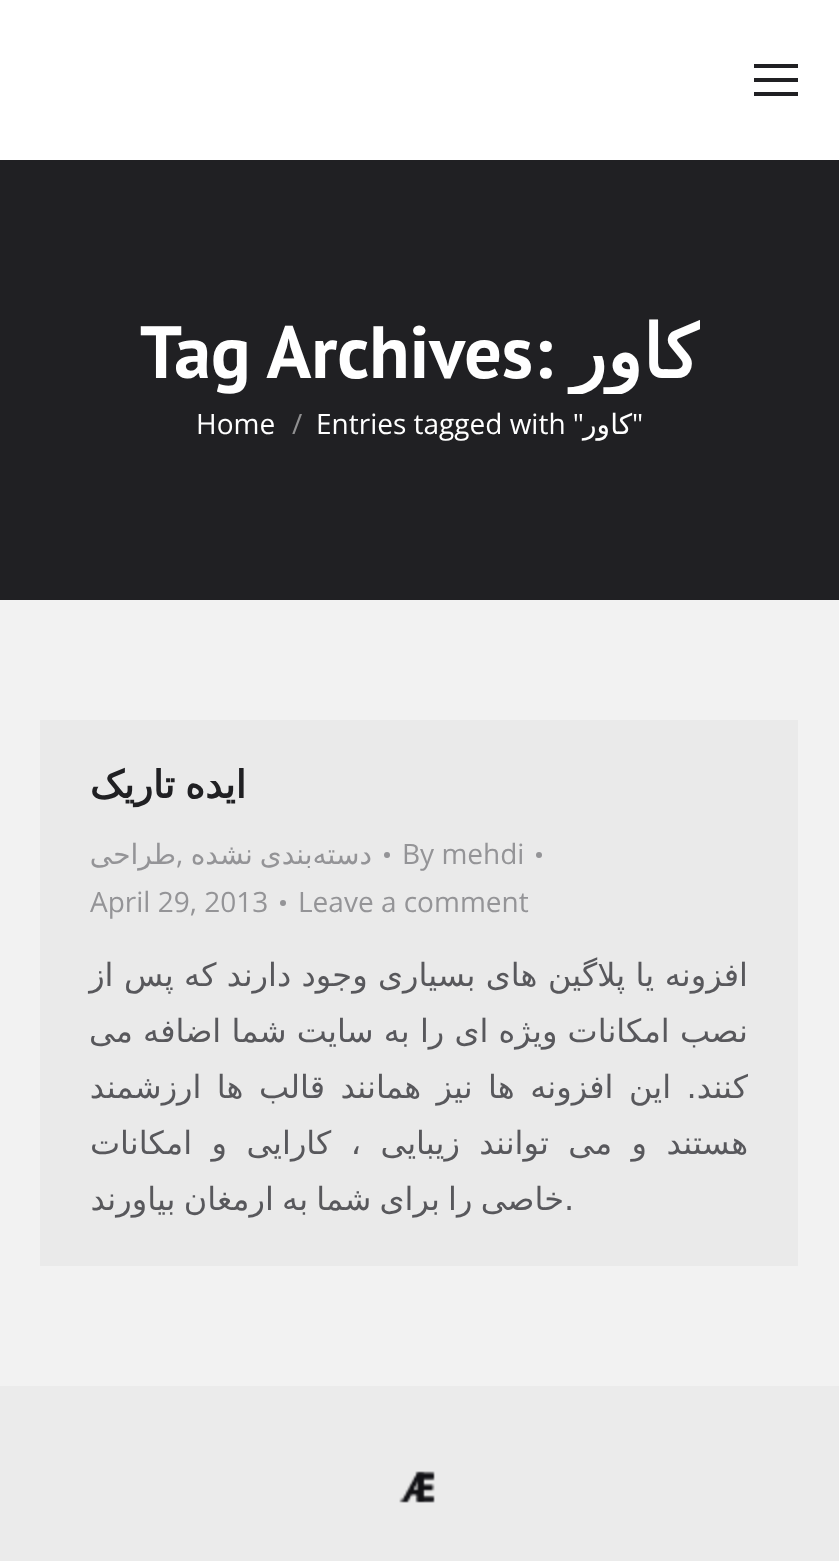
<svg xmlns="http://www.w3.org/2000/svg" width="839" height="1561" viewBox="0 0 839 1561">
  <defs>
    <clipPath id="clip1"><rect x="140" y="308" width="560" height="86"/></clipPath>
  </defs>
  <rect width="100%" height="100%" fill="#f2f2f2"/>
  <rect x="0" y="0" width="839" height="160" fill="#ffffff"/>
  <rect x="754" y="64" width="44" height="4" fill="#202023"/>
  <rect x="754" y="78" width="44" height="4" fill="#202023"/>
  <rect x="754" y="92" width="44" height="4" fill="#202023"/>
  <rect x="0" y="160" width="839" height="440" fill="#202023"/>
  <g clip-path="url(#clip1)">
    <text x="700" y="378" font-family="DejaVu Sans" font-size="74" font-weight="bold" direction="rtl" fill="#ffffff">کاور</text>
  </g>
  <text x="140" y="378" font-family="PT Sans" font-size="74" font-weight="bold" fill="#ffffff">Tag Archives:</text>
  <text x="632" y="434" font-family="Open Sans" font-size="28" fill="#ffffff">"</text>
  <text x="632" y="434" font-family="DejaVu Sans" font-size="28" direction="rtl" fill="#ffffff">کاور</text>
  <text x="316" y="434" font-family="Open Sans" font-size="28" fill="#ffffff">Entries tagged with "</text>
  <text x="292" y="434" font-family="Open Sans" font-size="28" fill="#909091">/</text>
  <text x="196" y="434" font-family="Open Sans" font-size="28" fill="#ffffff">Home</text>
  <rect x="40" y="720" width="758" height="546" fill="#eaeaea"/>
  <text x="246" y="798" word-spacing="-2" font-family="DejaVu Sans" font-size="38" font-weight="bold" direction="rtl" fill="#202023">ایده تاریک</text>
  <circle cx="539" cy="855" r="3" fill="#949497"/>
  <text x="402" y="864" font-family="Open Sans" font-size="28" fill="#949497">By mehdi</text>
  <circle cx="387" cy="855" r="3" fill="#949497"/>
  <text x="372" y="864" word-spacing="-2" font-family="DejaVu Sans" font-size="28" direction="rtl" fill="#949497">دسته‌بندی نشده</text>
  <text x="176" y="864" font-family="DejaVu Sans" font-size="28" direction="rtl" fill="#949497">طراحی</text>
  <text x="176" y="864" font-family="Open Sans" font-size="28" fill="#949497">,</text>
  <text x="298" y="912" font-family="Open Sans" font-size="28" fill="#949497">Leave a comment</text>
  <circle cx="283" cy="903" r="3" fill="#949497"/>
  <text x="90" y="912" font-family="Open Sans" font-size="28" fill="#949497">April 29, 2013</text>
  <text x="748" y="986" word-spacing="0.25" font-family="DejaVu Sans" font-size="32" direction="rtl" fill="#58585c">افزونه یا پلاگین های بسیاری وجود دارند که پس از</text>
  <text x="748" y="1042" font-family="DejaVu Sans" font-size="32" direction="rtl" fill="#58585c">نصب امکانات ویژه ای را به سایت شما اضافه می</text>
  <text x="748" y="1098" word-spacing="5.25" font-family="DejaVu Sans" font-size="32" direction="rtl" fill="#58585c">کنند. این افزونه ها نیز همانند قالب ها ارزشمند</text>
  <text x="748" y="1154" word-spacing="9.25" font-family="DejaVu Sans" font-size="32" direction="rtl" fill="#58585c">هستند و می توانند زیبایی ، کارایی و امکانات</text>
  <text x="564" y="1210" word-spacing="-2" font-family="DejaVu Sans" font-size="32" direction="rtl" fill="#58585c">خاصی را برای شما به ارمغان بیاورند</text>
  <text x="564" y="1210" font-family="DejaVu Sans" font-size="32" fill="#58585c">.</text>
  <rect x="0" y="1386" width="839" height="175" fill="#ebebeb"/>
  <image x="399" y="1471" width="36" height="32" href="img1.png"/>
</svg>
